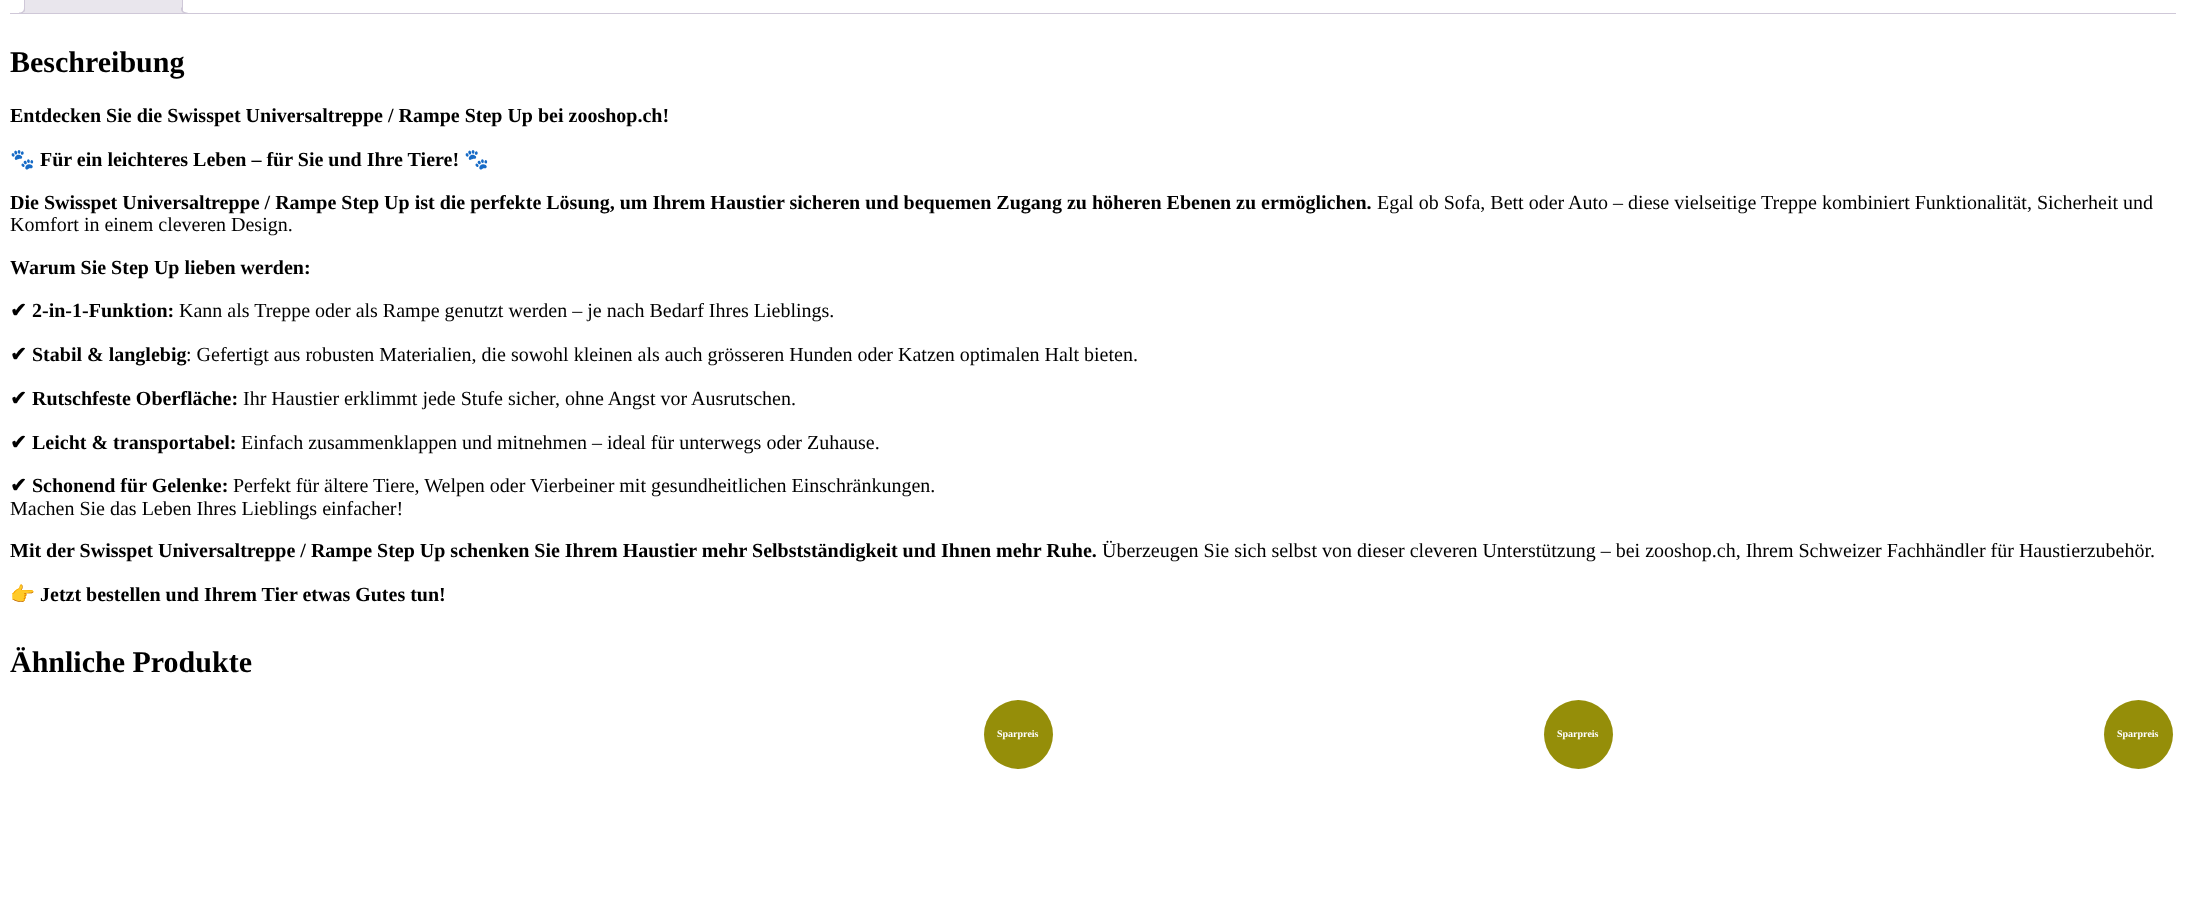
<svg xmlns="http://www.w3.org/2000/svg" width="2186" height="909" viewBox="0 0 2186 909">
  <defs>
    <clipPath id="clip1"><rect x="10" y="0" width="2166" height="14"/></clipPath>
  </defs>
  <rect width="100%" height="100%" fill="#ffffff"/>
  <rect x="24.5" y="-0.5" width="158" height="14" fill="#e9e6ed" stroke="#cfc8d8"/>
  <g clip-path="url(#clip1)">
    <path d="M21 13.5V16C25.5 16 28 15 28 10H25C24.5 12 23 13.5 21 13.5Z" fill="#e9e6ed"/>
  </g>
  <path d="M19 7.5H25C25 12 23 14 19 14ZM19 7.5H24C24 11 22.5 12.5 19 12.5Z" fill="#cfc8d8" fill-rule="evenodd"/>
  <g clip-path="url(#clip1)">
    <path d="M179 10C179 14 181 16 185 16V13.5C183 13 182 12 181.5 10Z" fill="#e9e6ed"/>
  </g>
  <path d="M181 7.5H187.5V14C184.5 14 181 12.5 181 9ZM182.5 7.5H187.5V12.5C185 12.5 182.5 11.5 182.5 9Z" fill="#cfc8d8" fill-rule="evenodd"/>
  <rect x="10" y="13" width="2166" height="1" fill="#cfc8d8"/>
  <text x="10" y="72" font-family="Liberation Serif" font-size="30" font-weight="bold" fill="#000000">Beschreibung</text>
  <text x="10" y="122" font-family="Liberation Serif" font-size="20" font-weight="bold" fill="#000000">Entdecken Sie die Swisspet Universaltreppe / Rampe Step Up bei zooshop.ch!</text>
  <text x="10" y="166" font-family="Noto Color Emoji" font-size="20" font-weight="bold" fill="#000000">🐾</text>
  <text x="40" y="166" font-family="Liberation Serif" font-size="20" font-weight="bold" fill="#000000">Für ein leichteres Leben – für Sie und Ihre Tiere!</text>
  <text x="464" y="166" font-family="Noto Color Emoji" font-size="20" font-weight="bold" fill="#000000">🐾</text>
  <text x="10" y="209" font-family="Liberation Serif" font-size="20" font-weight="bold" fill="#000000">Die Swisspet Universaltreppe / Rampe Step Up ist die perfekte Lösung, um Ihrem Haustier sicheren und bequemen Zugang zu höheren Ebenen zu ermöglichen.</text>
  <text x="1377" y="209" font-family="Liberation Serif" font-size="20" fill="#000000">Egal ob Sofa, Bett oder Auto – diese vielseitige Treppe kombiniert Funktionalität, Sicherheit und</text>
  <text x="10" y="231" font-family="Liberation Serif" font-size="20" fill="#000000">Komfort in einem cleveren Design.</text>
  <text x="10" y="274" font-family="Liberation Serif" font-size="20" font-weight="bold" fill="#000000">Warum Sie Step Up lieben werden:</text>
  <text x="10" y="317" font-family="DejaVu Sans" font-size="20" font-weight="bold" fill="#000000">✔</text>
  <text x="32" y="317" font-family="Liberation Serif" font-size="20" font-weight="bold" fill="#000000">2-in-1-Funktion:</text>
  <text x="179" y="317" font-family="Liberation Serif" font-size="20" fill="#000000">Kann als Treppe oder als Rampe genutzt werden – je nach Bedarf Ihres Lieblings.</text>
  <text x="10" y="361" font-family="DejaVu Sans" font-size="20" font-weight="bold" fill="#000000">✔</text>
  <text x="32" y="361" font-family="Liberation Serif" font-size="20" font-weight="bold" fill="#000000">Stabil &amp; langlebig</text>
  <text x="186" y="361" font-family="Liberation Serif" font-size="20" fill="#000000">: Gefertigt aus robusten Materialien, die sowohl kleinen als auch grösseren Hunden oder Katzen optimalen Halt bieten.</text>
  <text x="10" y="405" font-family="DejaVu Sans" font-size="20" font-weight="bold" fill="#000000">✔</text>
  <text x="32" y="405" font-family="Liberation Serif" font-size="20" font-weight="bold" fill="#000000">Rutschfeste Oberfläche:</text>
  <text x="243" y="405" font-family="Liberation Serif" font-size="20" fill="#000000">Ihr Haustier erklimmt jede Stufe sicher, ohne Angst vor Ausrutschen.</text>
  <text x="10" y="449" font-family="DejaVu Sans" font-size="20" font-weight="bold" fill="#000000">✔</text>
  <text x="32" y="449" font-family="Liberation Serif" font-size="20" font-weight="bold" fill="#000000">Leicht &amp; transportabel:</text>
  <text x="241" y="449" font-family="Liberation Serif" font-size="20" fill="#000000">Einfach zusammenklappen und mitnehmen – ideal für unterwegs oder Zuhause.</text>
  <text x="10" y="492" font-family="DejaVu Sans" font-size="20" font-weight="bold" fill="#000000">✔</text>
  <text x="32" y="492" font-family="Liberation Serif" font-size="20" font-weight="bold" fill="#000000">Schonend für Gelenke:</text>
  <text x="233" y="492" font-family="Liberation Serif" font-size="20" fill="#000000">Perfekt für ältere Tiere, Welpen oder Vierbeiner mit gesundheitlichen Einschränkungen.</text>
  <text x="10" y="515" font-family="Liberation Serif" font-size="20" fill="#000000">Machen Sie das Leben Ihres Lieblings einfacher!</text>
  <text x="10" y="557" font-family="Liberation Serif" font-size="20" font-weight="bold" fill="#000000">Mit der Swisspet Universaltreppe / Rampe Step Up schenken Sie Ihrem Haustier mehr Selbstständigkeit und Ihnen mehr Ruhe.</text>
  <text x="1102" y="557" font-family="Liberation Serif" font-size="20" fill="#000000">Überzeugen Sie sich selbst von dieser cleveren Unterstützung – bei zooshop.ch, Ihrem Schweizer Fachhändler für Haustierzubehör.</text>
  <text x="10" y="601" font-family="Noto Color Emoji" font-size="20" font-weight="bold" fill="#000000">👉</text>
  <text x="40" y="601" font-family="Liberation Serif" font-size="20" font-weight="bold" fill="#000000">Jetzt bestellen und Ihrem Tier etwas Gutes tun!</text>
  <text x="10" y="672" font-family="Liberation Serif" font-size="30" font-weight="bold" fill="#000000">Ähnliche Produkte</text>
  <circle cx="1018.5" cy="734.5" r="34.5" fill="#958e09"/>
  <text x="997" y="737" font-family="Liberation Serif" font-size="10" font-weight="bold" fill="#ffffff">Sparpreis</text>
  <circle cx="1578.5" cy="734.5" r="34.5" fill="#958e09"/>
  <text x="1557" y="737" font-family="Liberation Serif" font-size="10" font-weight="bold" fill="#ffffff">Sparpreis</text>
  <circle cx="2138.5" cy="734.5" r="34.5" fill="#958e09"/>
  <text x="2117" y="737" font-family="Liberation Serif" font-size="10" font-weight="bold" fill="#ffffff">Sparpreis</text>
</svg>
